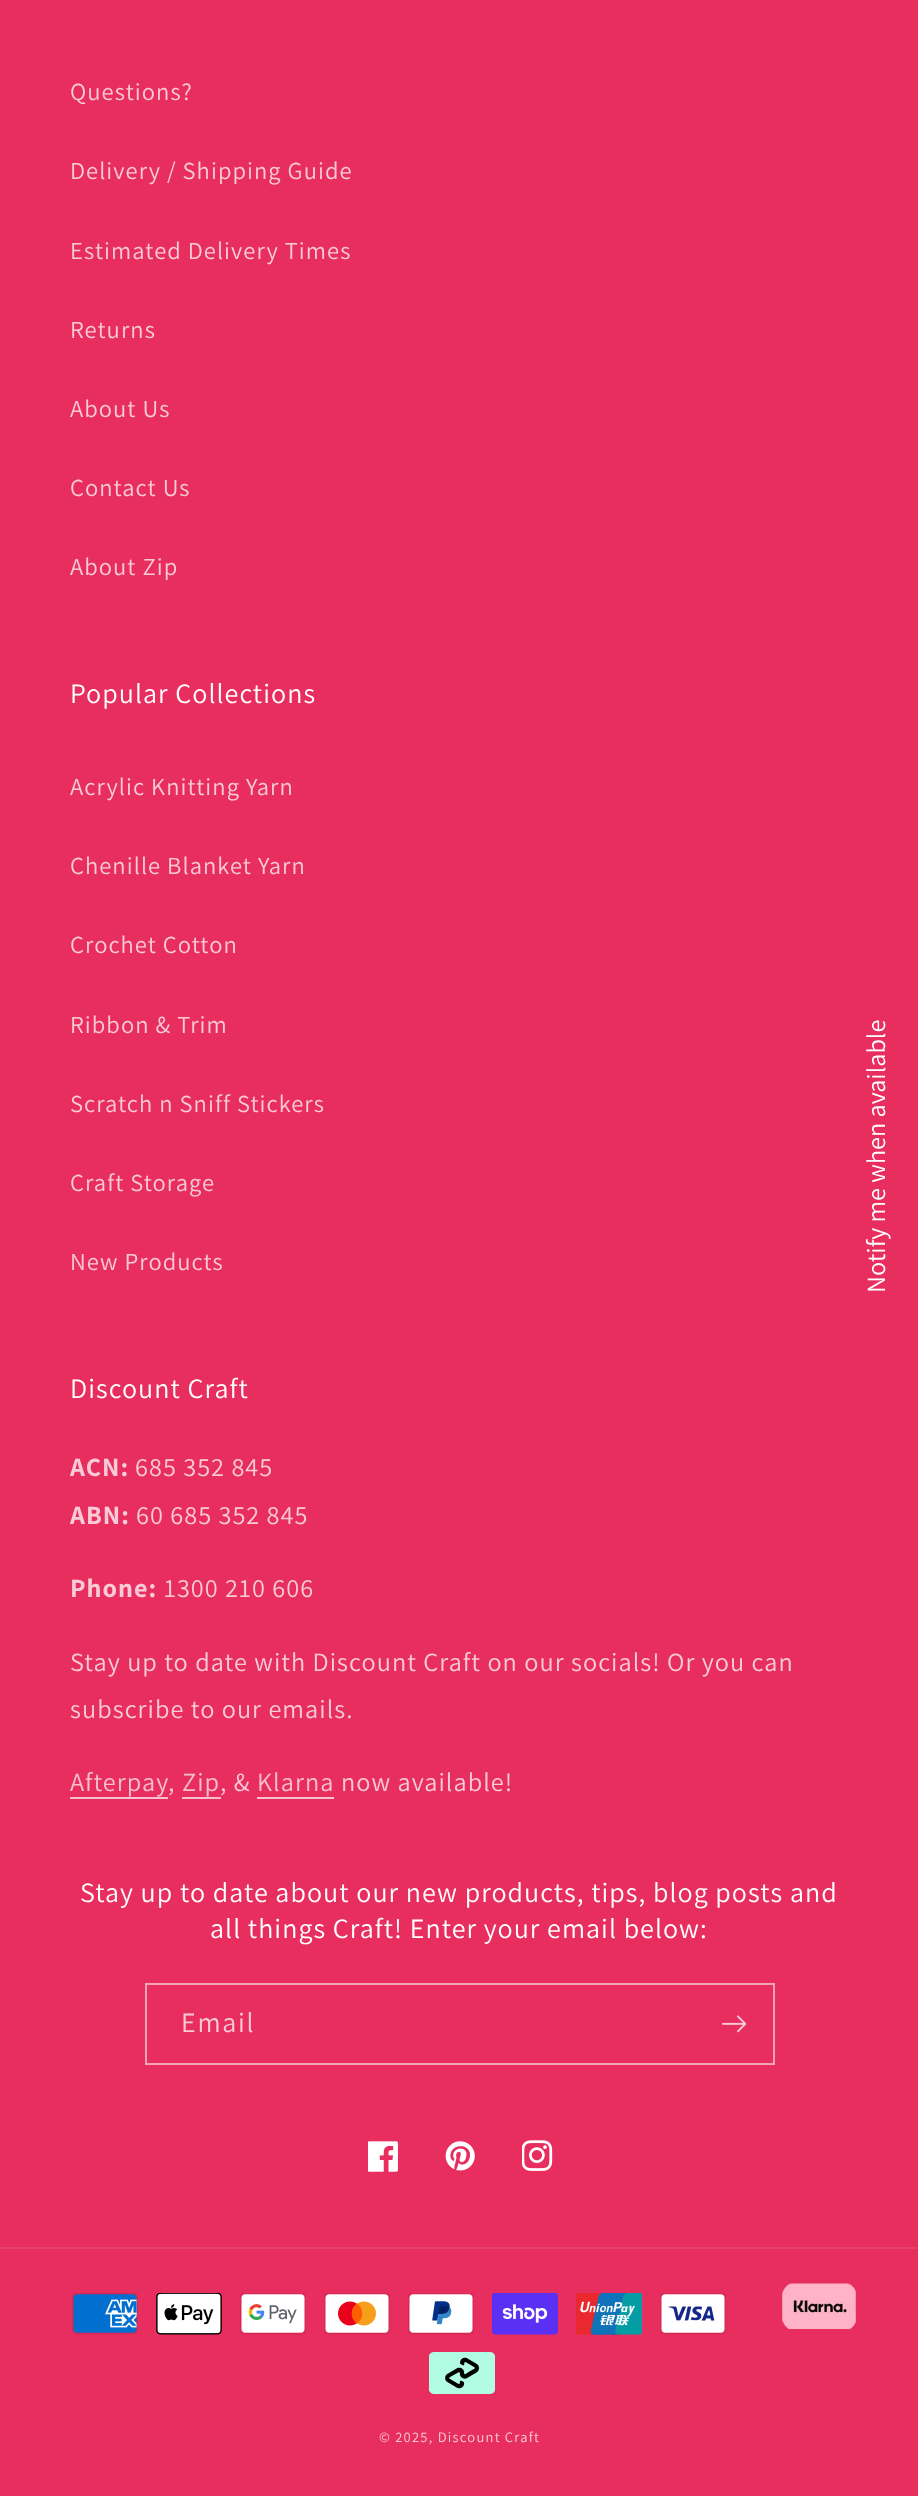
<svg xmlns="http://www.w3.org/2000/svg" width="918" height="2496" viewBox="0 0 918 2496">
  <rect width="100%" height="100%" fill="#e82d5f"/>
  <text x="70" y="100" font-family="Assistant" font-size="24.5" letter-spacing="1.05" fill="#f9cbd7">Questions?</text>
  <text x="70" y="179" font-family="Assistant" font-size="24.5" letter-spacing="1.05" fill="#f9cbd7">Delivery / Shipping Guide</text>
  <text x="70" y="259" font-family="Assistant" font-size="24.5" letter-spacing="1.05" fill="#f9cbd7">Estimated Delivery Times</text>
  <text x="70" y="338" font-family="Assistant" font-size="24.5" letter-spacing="1.05" fill="#f9cbd7">Returns</text>
  <text x="70" y="417" font-family="Assistant" font-size="24.5" letter-spacing="1.05" fill="#f9cbd7">About Us</text>
  <text x="70" y="496" font-family="Assistant" font-size="24.5" letter-spacing="1.05" fill="#f9cbd7">Contact Us</text>
  <text x="70" y="575" font-family="Assistant" font-size="24.5" letter-spacing="1.05" fill="#f9cbd7">About Zip</text>
  <text x="70" y="703" font-family="Assistant" font-size="28" letter-spacing="1.05" fill="#ffffff">Popular Collections</text>
  <text x="70" y="795" font-family="Assistant" font-size="24.5" letter-spacing="1.05" fill="#f9cbd7">Acrylic Knitting Yarn</text>
  <text x="70" y="874" font-family="Assistant" font-size="24.5" letter-spacing="1.05" fill="#f9cbd7">Chenille Blanket Yarn</text>
  <text x="70" y="953" font-family="Assistant" font-size="24.5" letter-spacing="1.05" fill="#f9cbd7">Crochet Cotton</text>
  <text x="70" y="1033" font-family="Assistant" font-size="24.5" letter-spacing="1.05" fill="#f9cbd7">Ribbon &amp; Trim</text>
  <text x="70" y="1112" font-family="Assistant" font-size="24.5" letter-spacing="1.05" fill="#f9cbd7">Scratch n Sniff Stickers</text>
  <text x="70" y="1191" font-family="Assistant" font-size="24.5" letter-spacing="1.05" fill="#f9cbd7">Craft Storage</text>
  <text x="70" y="1270" font-family="Assistant" font-size="24.5" letter-spacing="1.05" fill="#f9cbd7">New Products</text>
  <text x="70" y="1398" font-family="Assistant" font-size="28" letter-spacing="1.05" fill="#ffffff">Discount Craft</text>
  <text x="70" y="1476" font-family="Assistant" font-size="26.25" font-weight="bold" letter-spacing="1.05" fill="#f9cbd7">ACN:</text>
  <text x="135" y="1476" font-family="Assistant" font-size="26.25" letter-spacing="1.05" fill="#f9cbd7">685 352 845</text>
  <text x="70" y="1524" font-family="Assistant" font-size="26.25" font-weight="bold" letter-spacing="1.05" fill="#f9cbd7">ABN:</text>
  <text x="136" y="1524" font-family="Assistant" font-size="26.25" letter-spacing="1.05" fill="#f9cbd7">60 685 352 845</text>
  <text x="70" y="1597" font-family="Assistant" font-size="26.25" font-weight="bold" letter-spacing="1.05" fill="#f9cbd7">Phone:</text>
  <text x="164" y="1597" font-family="Assistant" font-size="26.25" letter-spacing="1.05" fill="#f9cbd7">1300 210 606</text>
  <text x="70" y="1671" font-family="Assistant" font-size="26.25" letter-spacing="1.05" fill="#f9cbd7">Stay up to date with Discount Craft on our socials! Or you can</text>
  <text x="70" y="1718" font-family="Assistant" font-size="26.25" letter-spacing="1.05" fill="#f9cbd7">subscribe to our emails.</text>
  <text x="70" y="1791" font-family="Assistant" font-size="26.25" letter-spacing="1.05" fill="#f8c0cf">Afterpay</text>
  <rect x="70" y="1797" width="98" height="2" fill="#f8c0cf"/>
  <text x="168" y="1791" font-family="Assistant" font-size="26.25" letter-spacing="1.05" fill="#f9cbd7">,</text>
  <text x="182" y="1791" font-family="Assistant" font-size="26.25" letter-spacing="1.05" fill="#f8c0cf">Zip</text>
  <rect x="182" y="1797" width="39" height="2" fill="#f8c0cf"/>
  <text x="220" y="1791" font-family="Assistant" font-size="26.25" letter-spacing="1.05" fill="#f9cbd7">, &amp;</text>
  <text x="257" y="1791" font-family="Assistant" font-size="26.25" letter-spacing="1.05" fill="#f8c0cf">Klarna</text>
  <rect x="257" y="1797" width="77" height="2" fill="#f8c0cf"/>
  <text x="341" y="1791" font-family="Assistant" font-size="26.25" letter-spacing="1.05" fill="#f9cbd7">now available!</text>
  <text x="80" y="1902" font-family="Assistant" font-size="28" letter-spacing="1.05" fill="#ffffff">Stay up to date about our new products, tips, blog posts and</text>
  <text x="210" y="1938" font-family="Assistant" font-size="28" letter-spacing="1.05" fill="#ffffff">all things Craft! Enter your email below:</text>
  <rect x="146" y="1984" width="628" height="80" fill="none" stroke="#f5a1b7" stroke-width="2"/>
  <text x="181" y="2032" font-family="Assistant" font-size="28" letter-spacing="1.75" fill="#f9cbd7">Email</text>
  <image x="722" y="2015" width="25" height="18" href="img1.png"/>
  <image x="368" y="2141" width="30" height="31" href="img2.png"/>
  <image x="445" y="2141" width="30" height="30" href="img3.png"/>
  <image x="522" y="2140" width="31" height="31" href="img4.png"/>
  <rect x="0" y="2247" width="918" height="2" fill="#ea3e6c"/>
  <image x="72" y="2293" width="66" height="42" href="img5.png"/>
  <image x="156" y="2293" width="66" height="42" href="img6.png"/>
  <image x="240" y="2293" width="66" height="42" href="img7.png"/>
  <image x="324" y="2293" width="66" height="42" href="img8.png"/>
  <image x="408" y="2293" width="66" height="42" href="img9.png"/>
  <image x="492" y="2293" width="66" height="42" href="img10.png"/>
  <image x="576" y="2293" width="66" height="42" href="img11.png"/>
  <image x="660" y="2293" width="66" height="42" href="img12.png"/>
  <image x="782" y="2283" width="74" height="46" href="img13.png"/>
  <image x="429" y="2352" width="66" height="42" href="img14.png"/>
  <text x="379" y="2442" font-family="Assistant" font-size="14.5" letter-spacing="1.25" fill="#f9cbd7">© 2025, Discount Craft</text>
  <text x="885" y="1293" transform="rotate(-90 885 1293)" font-family="Assistant" font-size="26.25" fill="#ffffff">Notify me when available</text>
</svg>
